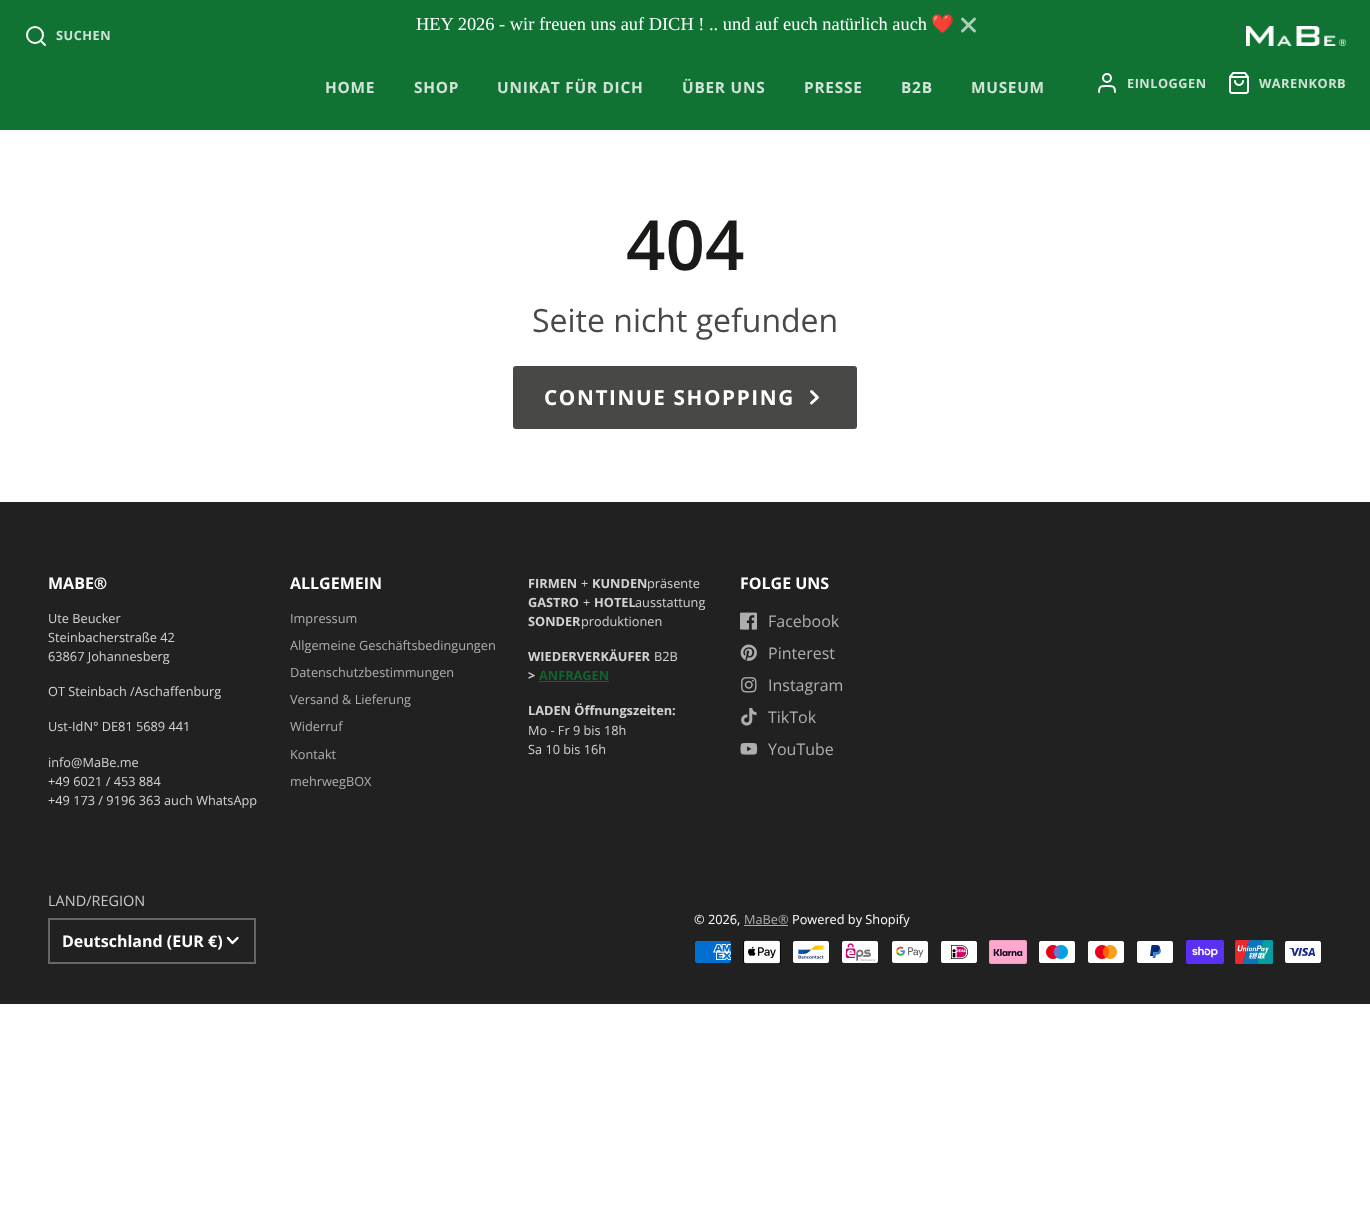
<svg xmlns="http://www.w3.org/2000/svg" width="1370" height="1220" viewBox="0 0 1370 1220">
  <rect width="100%" height="100%" fill="#ffffff"/>
  <rect x="0" y="0" width="1370" height="130" fill="#107333"/>
  <text x="416" y="30" font-family="Liberation Serif" font-size="18.4" fill="#ffffff">HEY 2026 - wir freuen uns auf DICH ! .. und auf euch natürlich auch</text>
  <text x="931" y="30" font-family="Noto Color Emoji" font-size="18.4" fill="#ffffff">❤️</text>
  <path d="M974.5 19L962.5 31M962.5 19L974.5 31" fill="none" stroke="#a9cdb6" stroke-width="3" stroke-linecap="round" stroke-linejoin="round"/>
  <circle cx="35" cy="35" r="8" fill="none" stroke="#ffffff" stroke-width="2"/>
  <path d="M45 45L40.5 40.5" fill="none" stroke="#ffffff" stroke-width="2" stroke-linecap="round" stroke-linejoin="round"/>
  <text x="56" y="40" font-family="Open Sans" font-size="12.75" font-weight="bold" letter-spacing="0.5" fill="#cfe3d6">SUCHEN</text>
  <image x="1246" y="26" width="100" height="20" href="img1.png"/>
  <text x="325" y="93" font-family="Open Sans" font-size="15.4" font-weight="bold" letter-spacing="0.75" fill="#cfe3d6">HOME</text>
  <text x="414" y="93" font-family="Open Sans" font-size="15.4" font-weight="bold" letter-spacing="0.75" fill="#cfe3d6">SHOP</text>
  <text x="497" y="93" font-family="Open Sans" font-size="15.4" font-weight="bold" letter-spacing="0.75" fill="#cfe3d6">UNIKAT FÜR DICH</text>
  <text x="682" y="93" font-family="Open Sans" font-size="15.4" font-weight="bold" letter-spacing="0.75" fill="#cfe3d6">ÜBER UNS</text>
  <text x="804" y="93" font-family="Open Sans" font-size="15.4" font-weight="bold" letter-spacing="0.75" fill="#cfe3d6">PRESSE</text>
  <text x="901" y="93" font-family="Open Sans" font-size="15.4" font-weight="bold" letter-spacing="0.75" fill="#cfe3d6">B2B</text>
  <text x="971" y="93" font-family="Open Sans" font-size="15.4" font-weight="bold" letter-spacing="0.75" fill="#cfe3d6">MUSEUM</text>
  <circle cx="1107" cy="78" r="4" fill="none" stroke="#ffffff" stroke-width="2"/>
  <path d="M1115 92C1115 85.5 1112.5 86 1107 86C1101.5 86 1099 85.5 1099 92" fill="none" stroke="#ffffff" stroke-width="2" stroke-linecap="round" stroke-linejoin="round"/>
  <text x="1127" y="88" font-family="Open Sans" font-size="12.75" font-weight="bold" letter-spacing="0.5" fill="#cfe3d6">EINLOGGEN</text>
  <image x="1229" y="72" width="20" height="22" href="img2.png"/>
  <text x="1259" y="88" font-family="Open Sans" font-size="12.75" font-weight="bold" letter-spacing="0.5" fill="#cfe3d6">WARENKORB</text>
  <text x="626" y="270" font-family="Open Sans" font-size="69" font-weight="600" fill="#1a1b18">404</text>
  <text x="532" y="332" font-family="Open Sans" font-size="32" fill="#484946">Seite nicht gefunden</text>
  <rect x="513" y="366" width="344" height="63" rx="3" fill="#484946"/>
  <text x="544" y="405" font-family="Open Sans" font-size="20.75" font-weight="bold" letter-spacing="1.6" fill="#ffffff">CONTINUE SHOPPING</text>
  <path d="M811.5 403L817.5 397.5L811.5 391.5" fill="none" stroke="#ffffff" stroke-width="2.9" stroke-linecap="round" stroke-linejoin="round"/>
  <rect x="0" y="502" width="1370" height="502" fill="#212121"/>
  <text x="48" y="589" font-family="Open Sans" font-size="16" font-weight="bold" fill="#ffffff">MABE®</text>
  <text x="48" y="623" font-family="Open Sans" font-size="12.75" fill="#d3d3d3">Ute Beucker</text>
  <text x="48" y="642" font-family="Open Sans" font-size="12.75" fill="#d3d3d3">Steinbacherstraße 42</text>
  <text x="48" y="661" font-family="Open Sans" font-size="12.75" fill="#d3d3d3">63867 Johannesberg</text>
  <text x="48" y="696" font-family="Open Sans" font-size="12.75" fill="#d3d3d3">OT Steinbach /Aschaffenburg</text>
  <text x="48" y="731" font-family="Open Sans" font-size="12.75" fill="#d3d3d3">Ust-IdN° DE81 5689 441</text>
  <text x="48" y="767" font-family="Open Sans" font-size="12.75" fill="#d3d3d3">info@MaBe.me</text>
  <text x="48" y="786" font-family="Open Sans" font-size="12.75" fill="#d3d3d3">+49 6021 / 453 884</text>
  <text x="48" y="805" font-family="Open Sans" font-size="12.75" fill="#d3d3d3">+49 173 / 9196 363 auch WhatsApp</text>
  <text x="290" y="589" font-family="Open Sans" font-size="16" font-weight="bold" fill="#ffffff">ALLGEMEIN</text>
  <text x="290" y="623" font-family="Open Sans" font-size="12.75" fill="#afafaf">Impressum</text>
  <text x="290" y="650" font-family="Open Sans" font-size="12.75" fill="#afafaf">Allgemeine Geschäftsbedingungen</text>
  <text x="290" y="677" font-family="Open Sans" font-size="12.75" fill="#afafaf">Datenschutzbestimmungen</text>
  <text x="290" y="704" font-family="Open Sans" font-size="12.75" fill="#afafaf">Versand &amp; Lieferung</text>
  <text x="290" y="731" font-family="Open Sans" font-size="12.75" fill="#afafaf">Widerruf</text>
  <text x="290" y="759" font-family="Open Sans" font-size="12.75" fill="#afafaf">Kontakt</text>
  <text x="290" y="786" font-family="Open Sans" font-size="12.75" fill="#afafaf">mehrwegBOX</text>
  <text x="528" y="588" font-family="Open Sans" font-size="12.75" font-weight="bold" fill="#d3d3d3">FIRMEN</text>
  <text x="581" y="588" font-family="Open Sans" font-size="12.75" fill="#d3d3d3">+</text>
  <text x="592" y="588" font-family="Open Sans" font-size="12.75" font-weight="bold" fill="#d3d3d3">KUNDEN</text>
  <text x="647" y="588" font-family="Open Sans" font-size="12.75" fill="#d3d3d3">präsente</text>
  <text x="528" y="607" font-family="Open Sans" font-size="12.75" font-weight="bold" fill="#d3d3d3">GASTRO</text>
  <text x="583" y="607" font-family="Open Sans" font-size="12.75" fill="#d3d3d3">+</text>
  <text x="594" y="607" font-family="Open Sans" font-size="12.75" font-weight="bold" fill="#d3d3d3">HOTEL</text>
  <text x="635" y="607" font-family="Open Sans" font-size="12.75" fill="#d3d3d3">ausstattung</text>
  <text x="528" y="626" font-family="Open Sans" font-size="12.75" font-weight="bold" fill="#d3d3d3">SONDER</text>
  <text x="581" y="626" font-family="Open Sans" font-size="12.75" fill="#d3d3d3">produktionen</text>
  <text x="528" y="661" font-family="Open Sans" font-size="12.75" font-weight="bold" fill="#d3d3d3">WIEDERVERKÄUFER</text>
  <text x="654" y="661" font-family="Open Sans" font-size="12.75" fill="#d3d3d3">B2B</text>
  <text x="528" y="680" font-family="Open Sans" font-size="12.75" font-weight="bold" fill="#d3d3d3">&gt;</text>
  <text x="539" y="680" font-family="Open Sans" font-size="12.75" font-weight="bold" fill="#13632f">ANFRAGEN</text>
  <rect x="539" y="681" width="70" height="1" fill="#13632f"/>
  <text x="528" y="715" font-family="Open Sans" font-size="12.75" font-weight="bold" fill="#d3d3d3">LADEN Öffnungszeiten:</text>
  <text x="528" y="735" font-family="Open Sans" font-size="12.75" fill="#d3d3d3">Mo - Fr 9 bis 18h</text>
  <text x="528" y="754" font-family="Open Sans" font-size="12.75" fill="#d3d3d3">Sa 10 bis 16h</text>
  <text x="740" y="589" font-family="Open Sans" font-size="16" font-weight="bold" fill="#ffffff">FOLGE UNS</text>
  <image x="740" y="612" width="17" height="18" href="img3.png"/>
  <text x="768" y="627" font-family="Open Sans" font-size="16" fill="#afafaf">Facebook</text>
  <image x="740" y="644" width="17" height="17" href="img4.png"/>
  <text x="768" y="659" font-family="Open Sans" font-size="16" fill="#afafaf">Pinterest</text>
  <image x="741" y="677" width="16" height="16" href="img5.png"/>
  <text x="768" y="691" font-family="Open Sans" font-size="16" fill="#afafaf">Instagram</text>
  <image x="741" y="708" width="16" height="18" href="img6.png"/>
  <text x="768" y="723" font-family="Open Sans" font-size="16" fill="#afafaf">TikTok</text>
  <image x="740" y="742" width="18" height="13" href="img7.png"/>
  <text x="768" y="755" font-family="Open Sans" font-size="16" fill="#afafaf">YouTube</text>
  <text x="48" y="906" font-family="Open Sans" font-size="14.5" fill="#c8c8c8">LAND/REGION</text>
  <rect x="49" y="919" width="206" height="44" fill="none" stroke="#666666" stroke-width="2"/>
  <text x="62" y="947" font-family="Open Sans" font-size="16" font-weight="bold" fill="#ffffff">Deutschland (EUR €)</text>
  <path d="M228 938L232.5 943L237.5 938" fill="none" stroke="#ffffff" stroke-width="2.4" stroke-linecap="round" stroke-linejoin="round"/>
  <text x="694" y="924" font-family="Open Sans" font-size="12.75" fill="#ffffff">© 2026,</text>
  <text x="744" y="924" font-family="Open Sans" font-size="12.75" fill="#afafaf">MaBe®</text>
  <rect x="744" y="925" width="44" height="1" fill="#afafaf"/>
  <text x="792" y="924" font-family="Open Sans" font-size="12.75" fill="#ffffff">Powered by Shopify</text>
  <image x="695" y="941" width="36" height="22" href="img8.png"/>
  <image x="743" y="940" width="38" height="24" href="img9.png"/>
  <image x="793" y="941" width="36" height="22" href="img10.png"/>
  <image x="842" y="941" width="36" height="22" href="img11.png"/>
  <image x="892" y="941" width="36" height="22" href="img12.png"/>
  <image x="941" y="941" width="36" height="22" href="img13.png"/>
  <image x="989" y="940" width="38" height="24" href="img14.png"/>
  <image x="1039" y="941" width="36" height="22" href="img15.png"/>
  <image x="1088" y="941" width="36" height="22" href="img16.png"/>
  <image x="1137" y="941" width="36" height="22" href="img17.png"/>
  <image x="1186" y="940" width="38" height="24" href="img18.png"/>
  <image x="1235" y="940" width="38" height="24" href="img19.png"/>
  <image x="1285" y="941" width="36" height="22" href="img20.png"/>
</svg>
